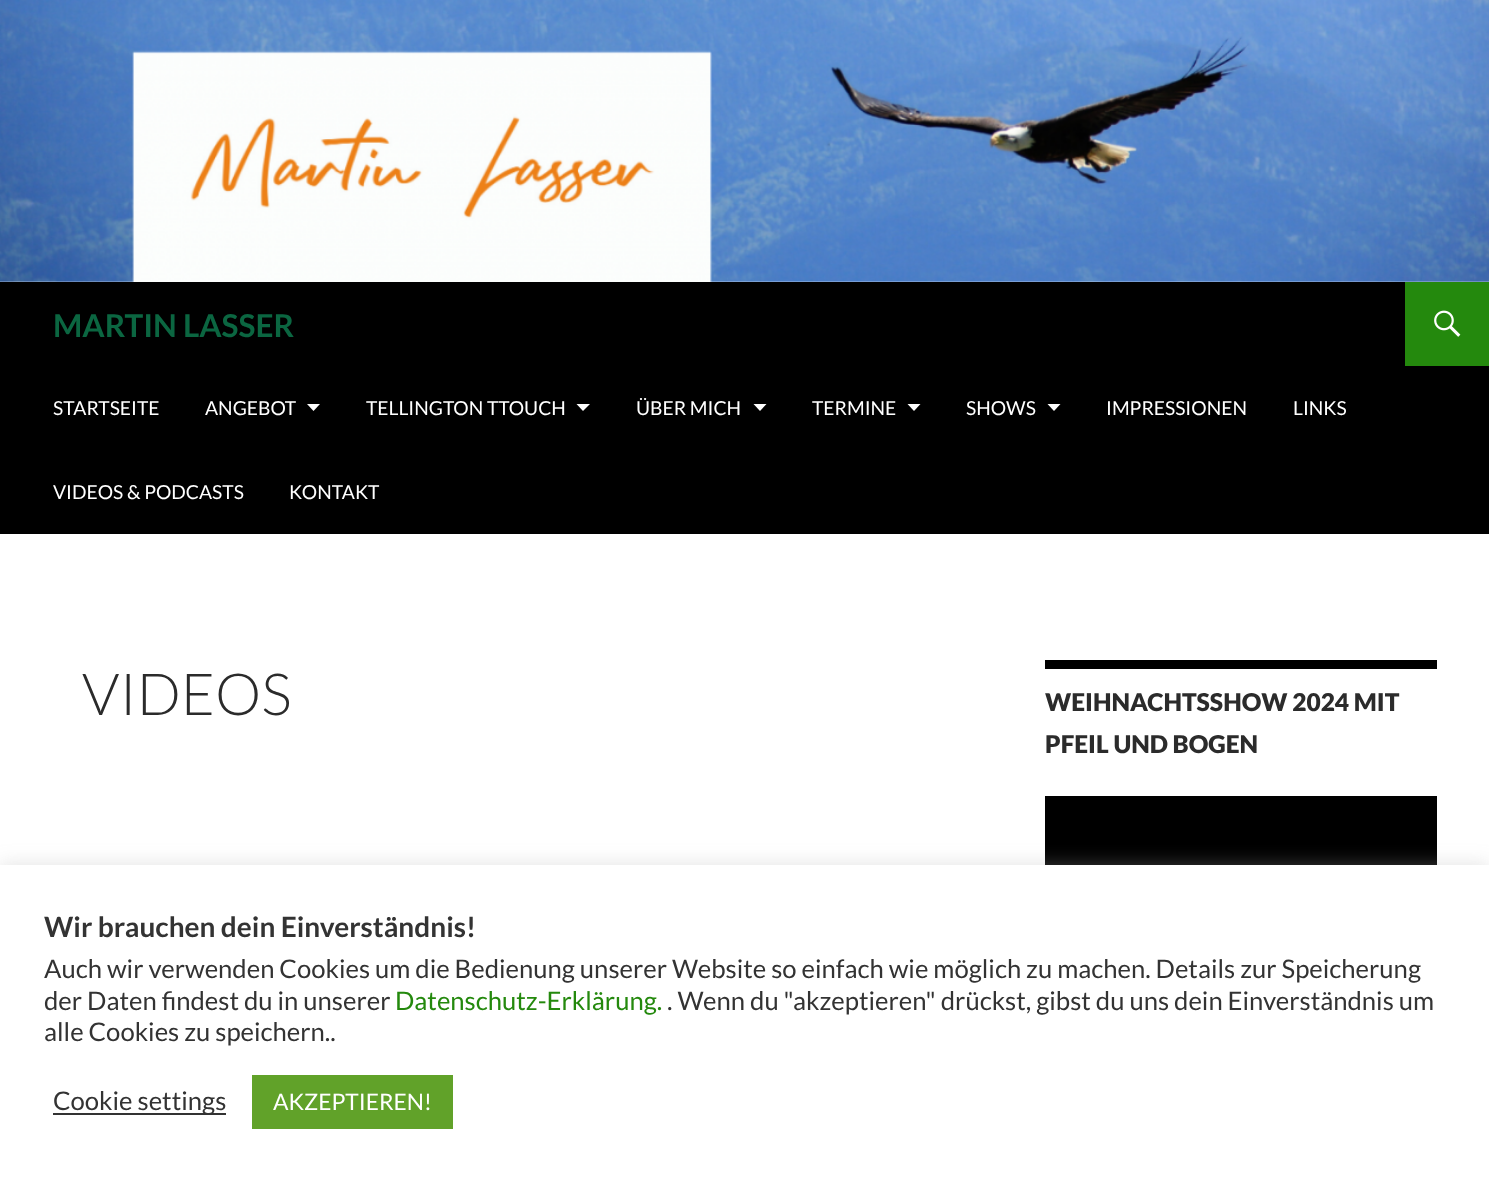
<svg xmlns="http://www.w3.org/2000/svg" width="1489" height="1180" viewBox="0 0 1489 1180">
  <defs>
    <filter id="blur1" x="-50%" y="-200%" width="200%" height="500%"><feGaussianBlur stdDeviation="9"/></filter>
  </defs>
  <rect width="100%" height="100%" fill="#ffffff"/>
  <image x="0" y="0" width="1489" height="282" href="img1.png"/>
  <rect x="0" y="282" width="1489" height="252" fill="#000000"/>
  <text x="53" y="337" font-family="Lato" font-size="31.5" font-weight="bold" fill="#0b6641">MARTIN LASSER</text>
  <rect x="1405" y="282" width="84" height="84" fill="#24890d"/>
  <image x="1434" y="310" width="27" height="27" href="img2.png"/>
  <text x="53" y="415" font-family="Lato" font-size="19.25" fill="#ffffff">STARTSEITE</text>
  <text x="205" y="415" font-family="Lato" font-size="19.25" fill="#ffffff">ANGEBOT</text>
  <path d="M307 404H320L313.5 411Z" fill="#ffffff"/>
  <text x="366" y="415" font-family="Lato" font-size="19.25" fill="#ffffff">TELLINGTON TTOUCH</text>
  <path d="M576.5 404H590L583 411Z" fill="#ffffff"/>
  <text x="636" y="415" font-family="Lato" font-size="19.25" fill="#ffffff">ÜBER MICH</text>
  <path d="M753.5 404H766.5L760 411Z" fill="#ffffff"/>
  <text x="812" y="415" font-family="Lato" font-size="19.25" fill="#ffffff">TERMINE</text>
  <path d="M907.5 404H920.5L914 411Z" fill="#ffffff"/>
  <text x="966" y="415" font-family="Lato" font-size="19.25" fill="#ffffff">SHOWS</text>
  <path d="M1047.5 404H1060.5L1054 411Z" fill="#ffffff"/>
  <text x="1106" y="415" font-family="Lato" font-size="19.25" fill="#ffffff">IMPRESSIONEN</text>
  <text x="1293" y="415" font-family="Lato" font-size="19.25" fill="#ffffff">LINKS</text>
  <text x="53" y="499" font-family="Lato" font-size="19.25" fill="#ffffff">VIDEOS &amp; PODCASTS</text>
  <text x="289" y="499" font-family="Lato" font-size="19.25" fill="#ffffff">KONTAKT</text>
  <text x="82" y="715" font-family="Lato" font-size="58" font-weight="300" fill="#2b2b2b">VIDEOS</text>
  <rect x="1045" y="660" width="392" height="9" fill="#000000"/>
  <text x="1045" y="711" font-family="Lato" font-size="24.5" font-weight="900" fill="#2b2b2b">WEIHNACHTSSHOW 2024 MIT</text>
  <text x="1045" y="753" font-family="Lato" font-size="24.5" font-weight="900" fill="#2b2b2b">PFEIL UND BOGEN</text>
  <rect x="1045" y="796" width="392" height="69" fill="#000000"/>
  <rect x="0" y="863" width="1489" height="317" fill="#acabab" fill-opacity="0.3" filter="url(#blur1)"/>
  <rect x="0" y="865" width="1489" height="315" fill="#ffffff"/>
  <text x="44" y="937" font-family="Lato" font-size="28" font-weight="bold" fill="#333333">Wir brauchen dein Einverständnis!</text>
  <text x="44" y="978" font-family="Lato" font-size="25.67" fill="#333333">Auch wir verwenden Cookies um die Bedienung unserer Website so einfach wie möglich zu machen. Details zur Speicherung</text>
  <text x="44" y="1010" font-family="Lato" font-size="25.67" fill="#333333">der Daten findest du in unserer</text>
  <text x="395" y="1010" font-family="Lato" font-size="25.67" fill="#24890d">Datenschutz-Erklärung.</text>
  <text x="667" y="1010" font-family="Lato" font-size="25.67" fill="#333333">. Wenn du "akzeptieren" drückst, gibst du uns dein Einverständnis um</text>
  <text x="44" y="1041" font-family="Lato" font-size="25.67" fill="#333333">alle Cookies zu speichern..</text>
  <rect x="53" y="1113" width="173" height="2" fill="#333333"/>
  <text x="53" y="1110" font-family="Lato" font-size="25.67" fill="#333333">Cookie settings</text>
  <rect x="252" y="1075" width="201" height="54" fill="#61a229"/>
  <text x="273" y="1110" font-family="Lato" font-size="22.75" fill="#ffffff">AKZEPTIEREN!</text>
</svg>
